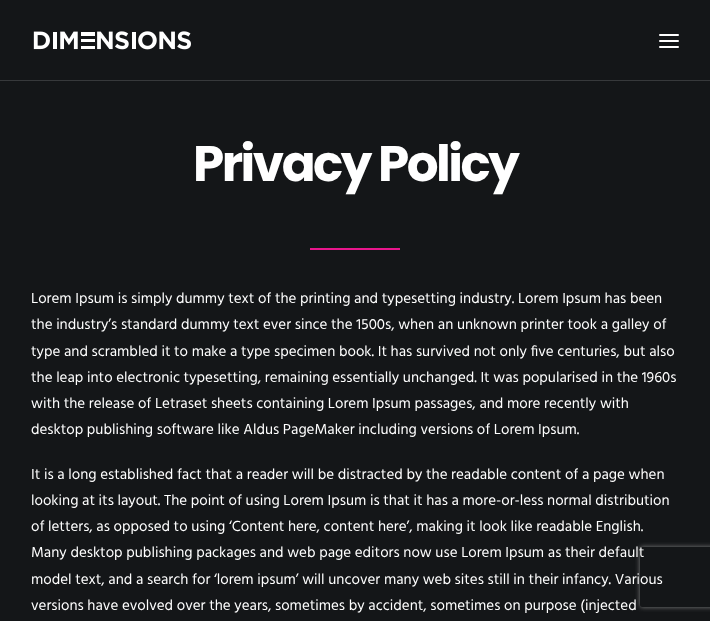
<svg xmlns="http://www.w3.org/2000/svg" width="710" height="621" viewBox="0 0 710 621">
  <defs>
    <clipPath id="clip1"><path d="M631 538H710V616H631ZM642 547H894C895 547 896 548 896 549V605C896 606 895 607 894 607H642C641 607 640 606 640 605V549C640 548 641 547 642 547Z" clip-rule="evenodd"/></clipPath>
    <filter id="blur1" x="-50%" y="-200%" width="200%" height="500%"><feGaussianBlur stdDeviation="2.5"/></filter>
  </defs>
  <rect width="100%" height="100%" fill="#141618"/>
  <rect x="0" y="80" width="710" height="1" fill="#37393b"/>
  <image x="33" y="31" width="158" height="19" href="img1.png"/>
  <rect x="659" y="40" width="20" height="2" rx="1" fill="#ffffff"/>
  <rect x="659" y="34" width="20" height="2" rx="1" fill="#ffffff"/>
  <rect x="659" y="46" width="20" height="2" rx="1" fill="#ffffff"/>
  <text x="193" y="181" font-family="Poppins" font-size="50" font-weight="bold" letter-spacing="-2.5" fill="#ffffff">Privacy Policy</text>
  <rect x="310" y="248" width="90" height="2" fill="#e9168c"/>
  <text x="31" y="303" font-family="Hind" font-size="15" fill="#ffffff">Lorem Ipsum is simply dummy text of the printing and typesetting industry. Lorem Ipsum has been</text>
  <text x="31" y="329" font-family="Hind" font-size="15" fill="#ffffff">the industry’s standard dummy text ever since the 1500s, when an unknown printer took a galley of</text>
  <text x="31" y="356" font-family="Hind" font-size="15" fill="#ffffff">type and scrambled it to make a type specimen book. It has survived not only five centuries, but also</text>
  <text x="31" y="382" font-family="Hind" font-size="15" fill="#ffffff">the leap into electronic typesetting, remaining essentially unchanged. It was popularised in the 1960s</text>
  <text x="31" y="408" font-family="Hind" font-size="15" fill="#ffffff">with the release of Letraset sheets containing Lorem Ipsum passages, and more recently with</text>
  <text x="31" y="434" font-family="Hind" font-size="15" fill="#ffffff">desktop publishing software like Aldus PageMaker including versions of Lorem Ipsum.</text>
  <text x="31" y="479" font-family="Hind" font-size="15" fill="#ffffff">It is a long established fact that a reader will be distracted by the readable content of a page when</text>
  <text x="31" y="505" font-family="Hind" font-size="15" fill="#ffffff">looking at its layout. The point of using Lorem Ipsum is that it has a more-or-less normal distribution</text>
  <text x="31" y="531" font-family="Hind" font-size="15" fill="#ffffff">of letters, as opposed to using ‘Content here, content here’, making it look like readable English.</text>
  <text x="31" y="557" font-family="Hind" font-size="15" fill="#ffffff">Many desktop publishing packages and web page editors now use Lorem Ipsum as their default</text>
  <text x="31" y="584" font-family="Hind" font-size="15" fill="#ffffff">model text, and a search for ‘lorem ipsum’ will uncover many web sites still in their infancy. Various</text>
  <text x="31" y="610" font-family="Hind" font-size="15" fill="#ffffff">versions have evolved over the years, sometimes by accident, sometimes on purpose (injected</text>
  <g clip-path="url(#clip1)">
    <rect x="640" y="547" width="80" height="60" rx="2" fill="#808080" filter="url(#blur1)"/>
  </g>
</svg>
